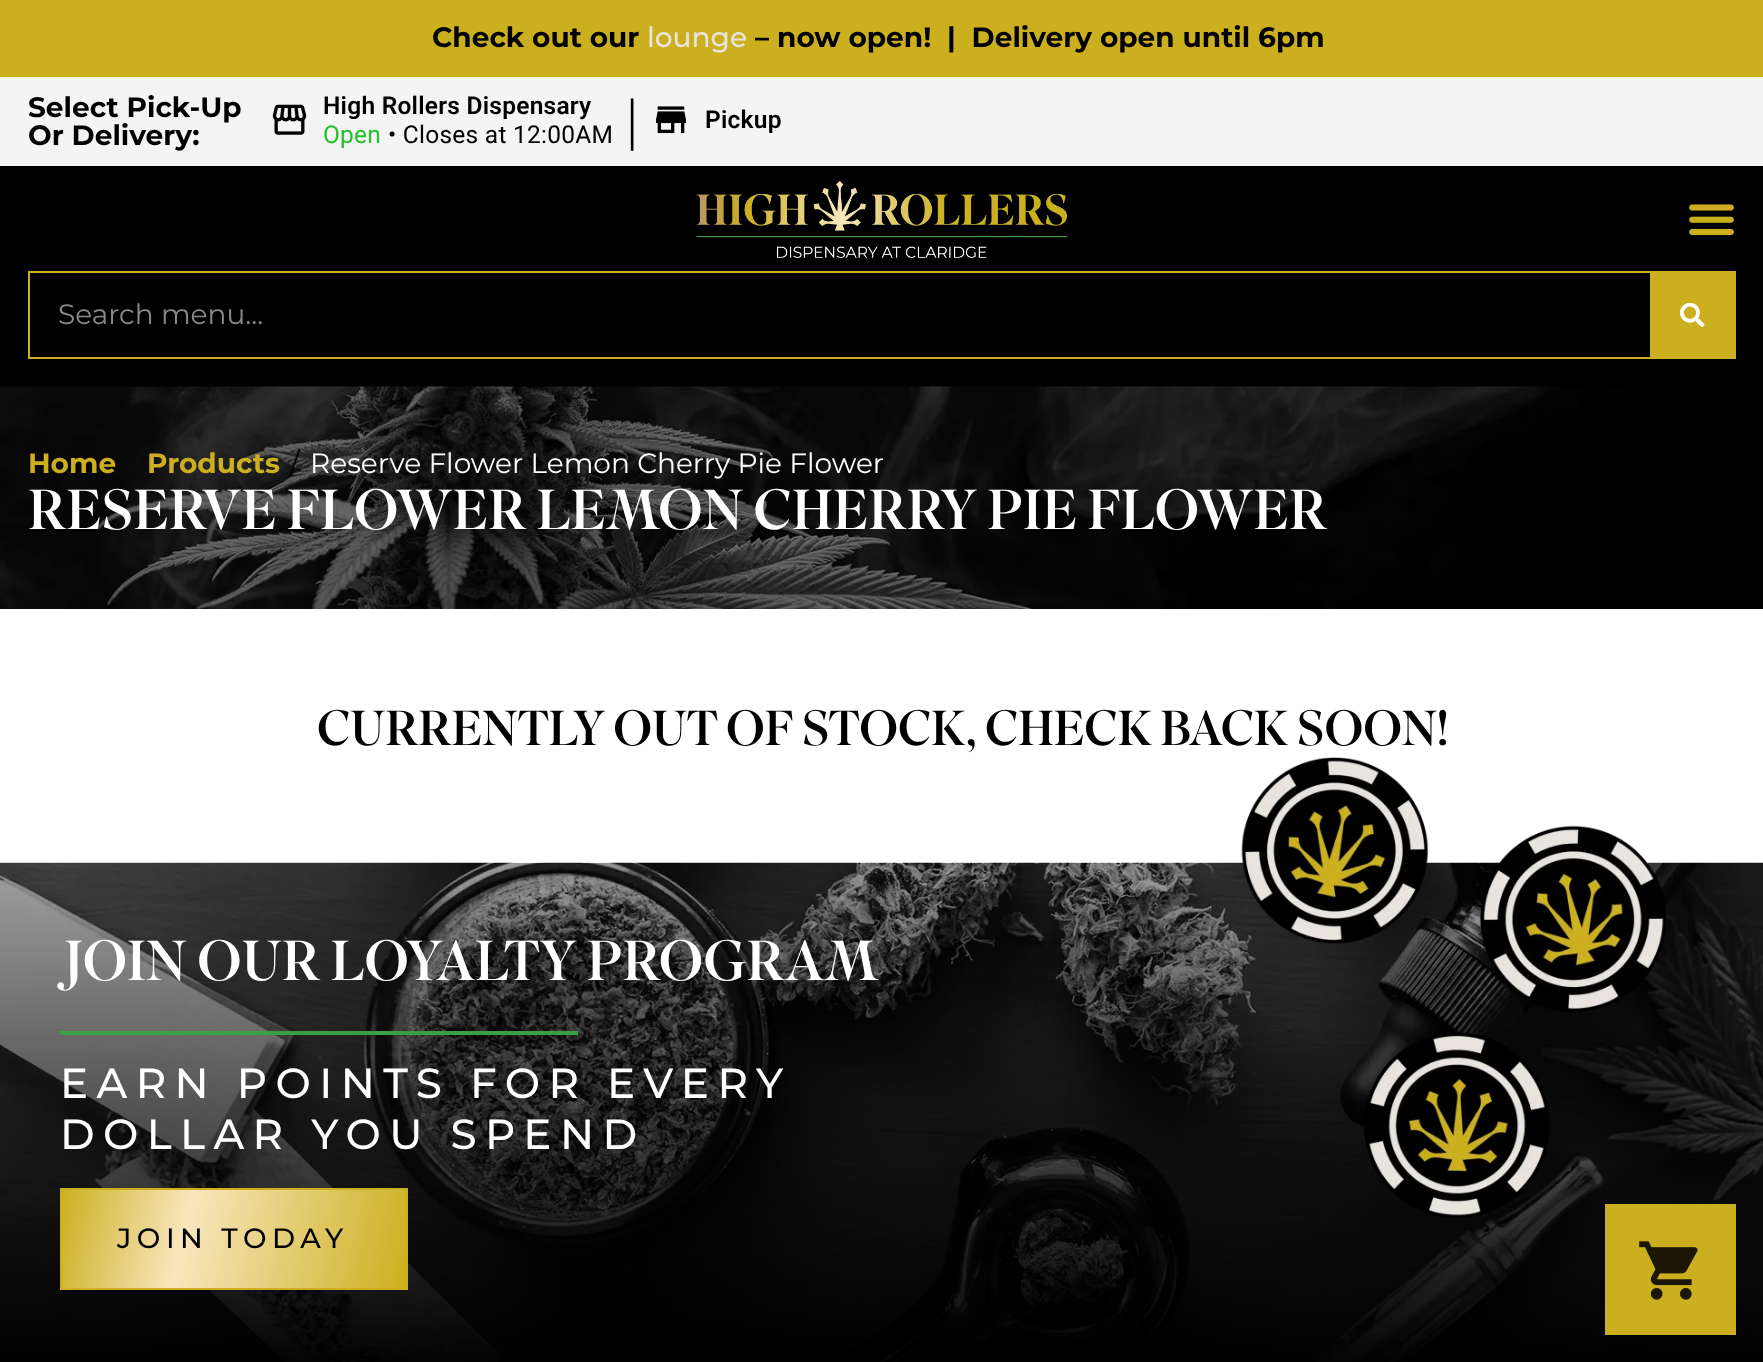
<svg xmlns="http://www.w3.org/2000/svg" width="1763" height="1362" viewBox="0 0 1763 1362">
  <defs>
    <linearGradient id="g1" gradientUnits="userSpaceOnUse" x1="59" y1="1199" x2="408" y2="1279"><stop offset="0" stop-color="#ccaf1f"/><stop offset="0.36" stop-color="#f9e6bd"/><stop offset="1" stop-color="#ccaf1f"/></linearGradient>
  </defs>
  <rect width="100%" height="100%" fill="#ffffff"/>
  <rect x="0" y="0" width="1763" height="77" fill="#ccaf1f"/>
  <text x="432" y="47" font-family="Montserrat" font-size="28" font-weight="bold" fill="#000000">Check out our</text>
  <text x="647" y="47" font-family="Montserrat" font-size="28" font-weight="500" fill="#e8e4dd">lounge</text>
  <text x="755" y="47" font-family="Montserrat" font-size="28" font-weight="bold" fill="#000000" xml:space="preserve">– now open!  |  Delivery open until 6pm</text>
  <rect x="0" y="77" width="1763" height="89" fill="#f4f4f4"/>
  <text x="28" y="117" font-family="Montserrat" font-size="28" font-weight="bold" fill="#000000">Select Pick-Up</text>
  <text x="28" y="145" font-family="Montserrat" font-size="28" font-weight="bold" fill="#000000">Or Delivery:</text>
  <image x="272" y="104" width="35" height="31" href="img1.png"/>
  <text x="323" y="114" font-family="Roboto" font-size="24.5" font-weight="600" letter-spacing="0.25" fill="#000000">High Rollers Dispensary</text>
  <text x="323" y="143" font-family="Roboto" font-size="24.5" letter-spacing="0.25" fill="#23c22a">Open</text>
  <text x="388" y="143" font-family="Roboto" font-size="24.5" letter-spacing="0.25" fill="#000000">• Closes at 12:00AM</text>
  <text x="624" y="140" font-family="Montserrat" font-size="56" font-weight="300" fill="#000000">|</text>
  <image x="656" y="106" width="30" height="28" href="img2.png"/>
  <text x="705" y="128" font-family="Roboto" font-size="24.5" font-weight="600" letter-spacing="0.25" fill="#000000">Pickup</text>
  <rect x="0" y="166" width="1763" height="221" fill="#000000"/>
  <image x="696" y="180" width="371" height="78" href="img3.png"/>
  <image x="1689" y="204" width="45" height="32" href="img4.png"/>
  <rect x="29" y="272" width="1706" height="86" fill="none" stroke="#ccaf1f" stroke-width="2"/>
  <text x="58" y="324" font-family="Montserrat" font-size="28" fill="#8b8985">Search menu...</text>
  <rect x="1650" y="273" width="84" height="84" fill="#ccaf1f"/>
  <image x="1680" y="303" width="25" height="24" href="img5.png"/>
  <image x="0" y="386" width="1763" height="223" href="img6.png"/>
  <text x="28" y="473" font-family="Montserrat" font-size="28" font-weight="bold" fill="#ccaf1f">Home</text>
  <text x="147" y="473" font-family="Montserrat" font-size="28" font-weight="bold" fill="#ccaf1f">Products</text>
  <text x="290" y="473" font-family="Montserrat" font-size="28" fill="#000000">/</text>
  <text x="310" y="473" font-family="Montserrat" font-size="28" fill="#ffffff">Reserve Flower Lemon Cherry Pie Flower</text>
  <text x="28" y="529" font-family="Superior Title" font-size="56" fill="#ffffff">RESERVE FLOWER LEMON CHERRY PIE FLOWER</text>
  <text x="317" y="745" font-family="Superior Title" font-size="49" letter-spacing="-0.4" fill="#000000">CURRENTLY OUT OF STOCK, CHECK BACK SOON!</text>
  <image x="0" y="862" width="1763" height="500" href="img7.png"/>
  <text x="60" y="980" font-family="Superior Title" font-size="56" fill="#ffffff">JOIN OUR LOYALTY PROGRAM</text>
  <rect x="60" y="1031" width="518" height="4" fill="#39a142"/>
  <text x="60" y="1098" font-family="Montserrat" font-size="42" font-weight="500" letter-spacing="8.4" fill="#ffffff">EARN POINTS FOR EVERY</text>
  <text x="60" y="1149" font-family="Montserrat" font-size="42" font-weight="500" letter-spacing="8.4" fill="#ffffff">DOLLAR YOU SPEND</text>
  <rect x="62" y="1190" width="344" height="98" fill="url(#g1)"/>
  <rect x="61" y="1189" width="346" height="100" fill="none" stroke="#ccaf1f" stroke-width="2"/>
  <text x="117" y="1248" font-family="Montserrat" font-size="28" font-weight="500" letter-spacing="5.5" fill="#000000">JOIN TODAY</text>
  <image x="1241" y="757" width="425" height="461" href="img8.png"/>
  <rect x="1605" y="1204" width="131" height="131" fill="#ccaf1f"/>
  <image x="1639" y="1241" width="59" height="59" href="img9.png"/>
</svg>
